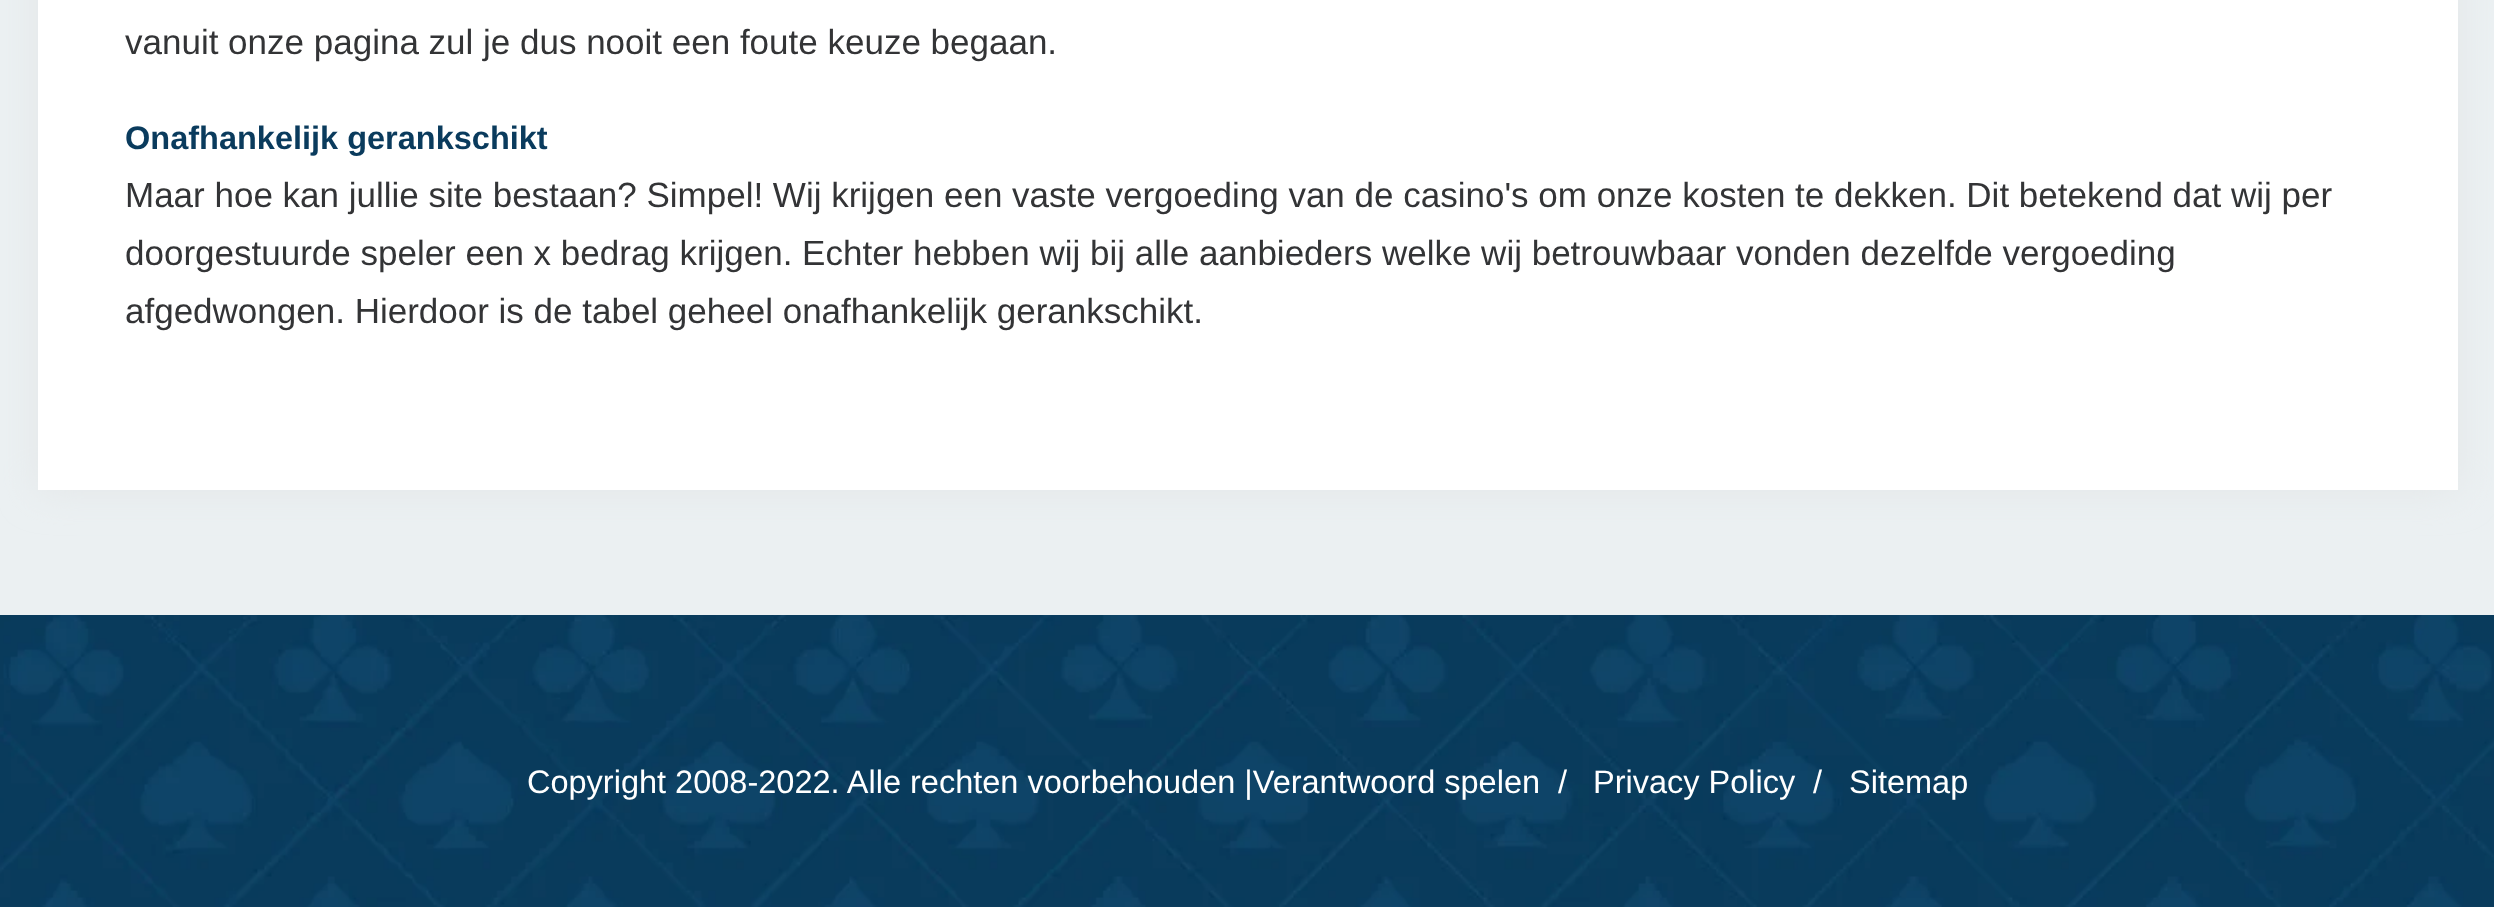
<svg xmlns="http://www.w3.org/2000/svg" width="2494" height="907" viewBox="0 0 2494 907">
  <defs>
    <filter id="blur1" x="-50%" y="-200%" width="200%" height="500%"><feGaussianBlur stdDeviation="19"/></filter>
  </defs>
  <rect width="100%" height="100%" fill="#ffffff"/>
  <rect x="0" y="0" width="2494" height="615" fill="#ebf0f2"/>
  <rect x="38" y="-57" width="2420" height="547" fill="#e3e6e7" filter="url(#blur1)"/>
  <rect x="38" y="0" width="2420" height="490" fill="#ffffff"/>
  <text x="125" y="54" font-family="Liberation Sans" font-size="35" fill="#333436">vanuit onze pagina zul je dus nooit een foute keuze begaan.</text>
  <text x="125" y="149" font-family="Liberation Sans" font-size="32.5" font-weight="bold" fill="#0a3b5d">Onafhankelijk gerankschikt</text>
  <text x="125" y="207" font-family="Liberation Sans" font-size="35" fill="#333436">Maar hoe kan jullie site bestaan? Simpel! Wij krijgen een vaste vergoeding van de casino's om onze kosten te dekken. Dit betekend dat wij per</text>
  <text x="125" y="265" font-family="Liberation Sans" font-size="35" fill="#333436">doorgestuurde speler een x bedrag krijgen. Echter hebben wij bij alle aanbieders welke wij betrouwbaar vonden dezelfde vergoeding</text>
  <text x="125" y="323" font-family="Liberation Sans" font-size="35" fill="#333436">afgedwongen. Hierdoor is de tabel geheel onafhankelijk gerankschikt.</text>
  <image x="0" y="615" width="2494" height="292" href="img1.png"/>
  <text x="527" y="793" font-family="Liberation Sans" font-size="32.5" fill="#ffffff">Copyright 2008-2022. Alle rechten voorbehouden |Verantwoord spelen</text>
  <text x="1558" y="793" font-family="Liberation Sans" font-size="32.5" fill="#ffffff">/</text>
  <text x="1593" y="793" font-family="Liberation Sans" font-size="32.5" fill="#ffffff">Privacy Policy</text>
  <text x="1813" y="793" font-family="Liberation Sans" font-size="32.5" fill="#ffffff">/</text>
  <text x="1849" y="793" font-family="Liberation Sans" font-size="32.5" fill="#ffffff">Sitemap</text>
</svg>
